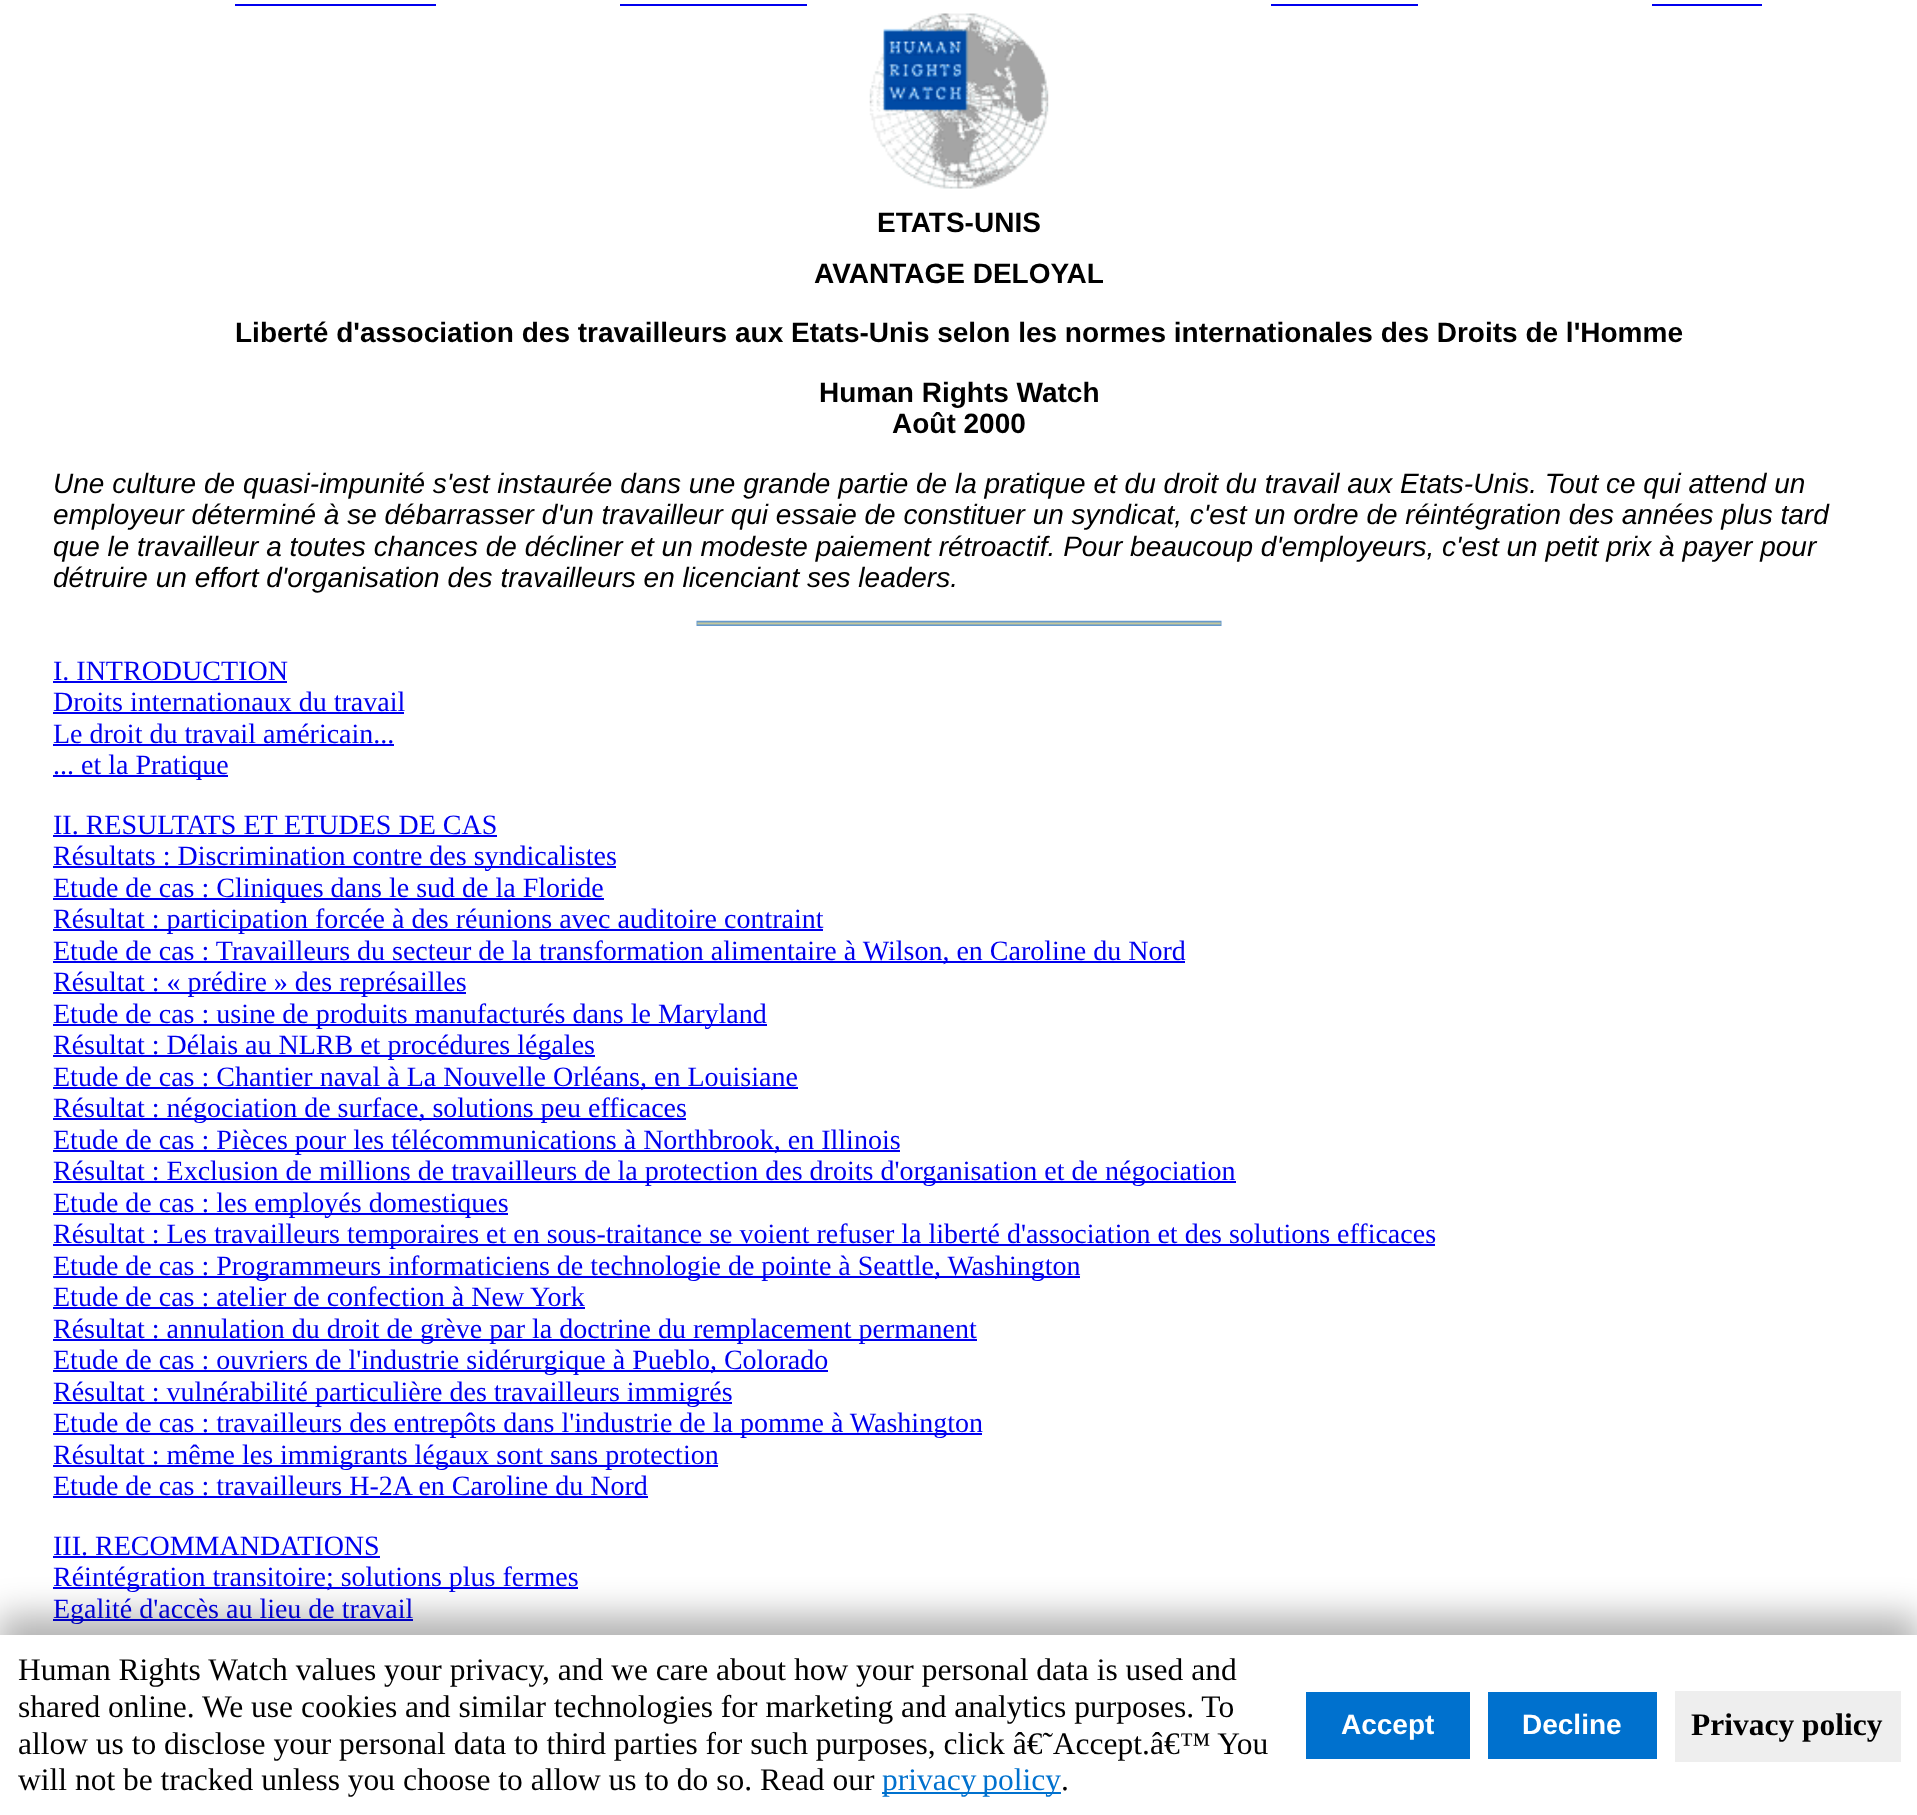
<svg xmlns="http://www.w3.org/2000/svg" width="1917" height="1815" viewBox="0 0 1917 1815">
  <defs>
    <filter id="blur1" x="-50%" y="-200%" width="200%" height="500%"><feGaussianBlur stdDeviation="17.5"/></filter>
  </defs>
  <rect width="100%" height="100%" fill="#ffffff"/>
  <rect x="235" y="4" width="201" height="2" fill="#0000ee"/>
  <rect x="620" y="4" width="187" height="2" fill="#0000ee"/>
  <rect x="1271" y="4" width="147" height="2" fill="#0000ee"/>
  <rect x="1652" y="4" width="110" height="2" fill="#0000ee"/>
  <image x="869" y="13" width="180" height="176" href="img1.png"/>
  <text x="877" y="232" font-family="Liberation Sans" font-size="28" font-weight="bold" fill="#000000">ETATS-UNIS</text>
  <text x="814" y="283" font-family="Liberation Sans" font-size="28" font-weight="bold" fill="#000000">AVANTAGE DELOYAL</text>
  <text x="235" y="342" font-family="Liberation Sans" font-size="28" font-weight="bold" fill="#000000">Liberté d'association des travailleurs aux Etats-Unis selon les normes internationales des Droits de l'Homme</text>
  <text x="819" y="402" font-family="Liberation Sans" font-size="28" font-weight="bold" fill="#000000">Human Rights Watch</text>
  <text x="892" y="433" font-family="Liberation Sans" font-size="28" font-weight="bold" fill="#000000">Août 2000</text>
  <text x="53" y="493" font-family="Liberation Sans" font-size="28" font-style="italic" fill="#000000">Une culture de quasi-impunité s'est instaurée dans une grande partie de la pratique et du droit du travail aux Etats-Unis. Tout ce qui attend un</text>
  <text x="53" y="524" font-family="Liberation Sans" font-size="28" font-style="italic" fill="#000000">employeur déterminé à se débarrasser d'un travailleur qui essaie de constituer un syndicat, c'est un ordre de réintégration des années plus tard</text>
  <text x="53" y="556" font-family="Liberation Sans" font-size="28" font-style="italic" fill="#000000">que le travailleur a toutes chances de décliner et un modeste paiement rétroactif. Pour beaucoup d'employeurs, c'est un petit prix à payer pour</text>
  <text x="53" y="587" font-family="Liberation Sans" font-size="28" font-style="italic" fill="#000000">détruire un effort d'organisation des travailleurs en licenciant ses leaders.</text>
  <image x="696" y="620" width="526" height="6" href="img2.png"/>
  <text x="53" y="680" font-family="Liberation Serif" font-size="28" fill="#0000ee">I. INTRODUCTION</text>
  <rect x="53" y="681" width="234" height="2" fill="#0000ee"/>
  <text x="53" y="711" font-family="Liberation Serif" font-size="28" fill="#0000ee">Droits internationaux du travail</text>
  <rect x="53" y="712" width="351" height="2" fill="#0000ee"/>
  <text x="53" y="743" font-family="Liberation Serif" font-size="28" fill="#0000ee">Le droit du travail américain...</text>
  <rect x="53" y="744" width="341" height="2" fill="#0000ee"/>
  <rect x="53" y="775" width="175" height="2" fill="#0000ee"/>
  <text x="53" y="774" font-family="Liberation Serif" font-size="28" fill="#0000ee">... et la Pratique</text>
  <text x="53" y="834" font-family="Liberation Serif" font-size="28" fill="#0000ee">II. RESULTATS ET ETUDES DE CAS</text>
  <rect x="53" y="835" width="444" height="2" fill="#0000ee"/>
  <rect x="53" y="866" width="563" height="2" fill="#0000ee"/>
  <text x="53" y="865" font-family="Liberation Serif" font-size="28" fill="#0000ee">Résultats : Discrimination contre des syndicalistes</text>
  <rect x="53" y="898" width="551" height="2" fill="#0000ee"/>
  <text x="53" y="897" font-family="Liberation Serif" font-size="28" fill="#0000ee">Etude de cas : Cliniques dans le sud de la Floride</text>
  <rect x="53" y="929" width="770" height="2" fill="#0000ee"/>
  <text x="53" y="928" font-family="Liberation Serif" font-size="28" fill="#0000ee">Résultat : participation forcée à des réunions avec auditoire contraint</text>
  <rect x="53" y="961" width="1132" height="2" fill="#0000ee"/>
  <text x="53" y="960" font-family="Liberation Serif" font-size="28" fill="#0000ee">Etude de cas : Travailleurs du secteur de la transformation alimentaire à Wilson, en Caroline du Nord</text>
  <rect x="53" y="992" width="413" height="2" fill="#0000ee"/>
  <text x="53" y="991" font-family="Liberation Serif" font-size="28" fill="#0000ee">Résultat : « prédire » des représailles</text>
  <rect x="53" y="1024" width="714" height="2" fill="#0000ee"/>
  <text x="53" y="1023" font-family="Liberation Serif" font-size="28" fill="#0000ee">Etude de cas : usine de produits manufacturés dans le Maryland</text>
  <rect x="53" y="1055" width="542" height="2" fill="#0000ee"/>
  <text x="53" y="1054" font-family="Liberation Serif" font-size="28" fill="#0000ee">Résultat : Délais au NLRB et procédures légales</text>
  <rect x="53" y="1087" width="745" height="2" fill="#0000ee"/>
  <text x="53" y="1086" font-family="Liberation Serif" font-size="28" fill="#0000ee">Etude de cas : Chantier naval à La Nouvelle Orléans, en Louisiane</text>
  <rect x="53" y="1118" width="633" height="2" fill="#0000ee"/>
  <text x="53" y="1117" font-family="Liberation Serif" font-size="28" fill="#0000ee">Résultat : négociation de surface, solutions peu efficaces</text>
  <rect x="53" y="1150" width="847" height="2" fill="#0000ee"/>
  <text x="53" y="1149" font-family="Liberation Serif" font-size="28" fill="#0000ee">Etude de cas : Pièces pour les télécommunications à Northbrook, en Illinois</text>
  <rect x="53" y="1181" width="1183" height="2" fill="#0000ee"/>
  <text x="53" y="1180" font-family="Liberation Serif" font-size="28" fill="#0000ee">Résultat : Exclusion de millions de travailleurs de la protection des droits d'organisation et de négociation</text>
  <rect x="53" y="1213" width="455" height="2" fill="#0000ee"/>
  <text x="53" y="1212" font-family="Liberation Serif" font-size="28" fill="#0000ee">Etude de cas : les employés domestiques</text>
  <rect x="53" y="1244" width="1382" height="2" fill="#0000ee"/>
  <text x="53" y="1243" font-family="Liberation Serif" font-size="28" fill="#0000ee">Résultat : Les travailleurs temporaires et en sous-traitance se voient refuser la liberté d'association et des solutions efficaces</text>
  <rect x="53" y="1276" width="1027" height="2" fill="#0000ee"/>
  <text x="53" y="1275" font-family="Liberation Serif" font-size="28" fill="#0000ee">Etude de cas : Programmeurs informaticiens de technologie de pointe à Seattle, Washington</text>
  <text x="53" y="1306" font-family="Liberation Serif" font-size="28" fill="#0000ee">Etude de cas : atelier de confection à New York</text>
  <rect x="53" y="1307" width="532" height="2" fill="#0000ee"/>
  <rect x="53" y="1339" width="924" height="2" fill="#0000ee"/>
  <text x="53" y="1338" font-family="Liberation Serif" font-size="28" fill="#0000ee">Résultat : annulation du droit de grève par la doctrine du remplacement permanent</text>
  <rect x="53" y="1370" width="775" height="2" fill="#0000ee"/>
  <text x="53" y="1369" font-family="Liberation Serif" font-size="28" fill="#0000ee">Etude de cas : ouvriers de l'industrie sidérurgique à Pueblo, Colorado</text>
  <rect x="53" y="1402" width="679" height="2" fill="#0000ee"/>
  <text x="53" y="1401" font-family="Liberation Serif" font-size="28" fill="#0000ee">Résultat : vulnérabilité particulière des travailleurs immigrés</text>
  <rect x="53" y="1433" width="929" height="2" fill="#0000ee"/>
  <text x="53" y="1432" font-family="Liberation Serif" font-size="28" fill="#0000ee">Etude de cas : travailleurs des entrepôts dans l'industrie de la pomme à Washington</text>
  <rect x="53" y="1465" width="665" height="2" fill="#0000ee"/>
  <text x="53" y="1464" font-family="Liberation Serif" font-size="28" fill="#0000ee">Résultat : même les immigrants légaux sont sans protection</text>
  <text x="53" y="1495" font-family="Liberation Serif" font-size="28" fill="#0000ee">Etude de cas : travailleurs H-2A en Caroline du Nord</text>
  <rect x="53" y="1496" width="595" height="2" fill="#0000ee"/>
  <text x="53" y="1555" font-family="Liberation Serif" font-size="28" fill="#0000ee">III. RECOMMANDATIONS</text>
  <rect x="53" y="1556" width="327" height="2" fill="#0000ee"/>
  <rect x="53" y="1587" width="525" height="2" fill="#0000ee"/>
  <text x="53" y="1586" font-family="Liberation Serif" font-size="28" fill="#0000ee">Réintégration transitoire; solutions plus fermes</text>
  <rect x="53" y="1619" width="360" height="2" fill="#0000ee"/>
  <text x="53" y="1618" font-family="Liberation Serif" font-size="28" fill="#0000ee">Egalité d'accès au lieu de travail</text>
  <rect x="-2" y="1615" width="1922" height="186" fill="#000000" fill-opacity="0.3" filter="url(#blur1)"/>
  <rect x="0" y="1635" width="1917" height="180" fill="#ffffff"/>
  <text x="18" y="1680" font-family="Liberation Serif" font-size="31.5" fill="#000000">Human Rights Watch values your privacy, and we care about how your personal data is used and</text>
  <text x="18" y="1717" font-family="Liberation Serif" font-size="31.5" fill="#000000">shared online. We use cookies and similar technologies for marketing and analytics purposes. To</text>
  <text x="18" y="1754" font-family="Liberation Serif" font-size="31.5" fill="#000000">allow us to disclose your personal data to third parties for such purposes, click â€˜Accept.â€™ You</text>
  <text x="18" y="1790" font-family="Liberation Serif" font-size="31.5" fill="#000000">will not be tracked unless you choose to allow us to do so. Read our</text>
  <rect x="882" y="1792" width="179" height="2" fill="#0071ce"/>
  <text x="882" y="1790" word-spacing="-2" font-family="Liberation Serif" font-size="31.5" fill="#0071ce">privacy policy</text>
  <text x="1061" y="1790" font-family="Liberation Serif" font-size="31.5" fill="#000000">.</text>
  <rect x="1306" y="1692" width="164" height="67" fill="#0071ce"/>
  <text x="1341" y="1734" font-family="Liberation Sans" font-size="28" font-weight="bold" fill="#ffffff">Accept</text>
  <rect x="1488" y="1692" width="169" height="67" fill="#0071ce"/>
  <text x="1522" y="1734" font-family="Liberation Sans" font-size="28" font-weight="bold" fill="#ffffff">Decline</text>
  <rect x="1675" y="1691" width="226" height="71" fill="#eeeeee"/>
  <text x="1691" y="1735" font-family="Liberation Serif" font-size="31.5" font-weight="bold" fill="#000000">Privacy policy</text>
</svg>
